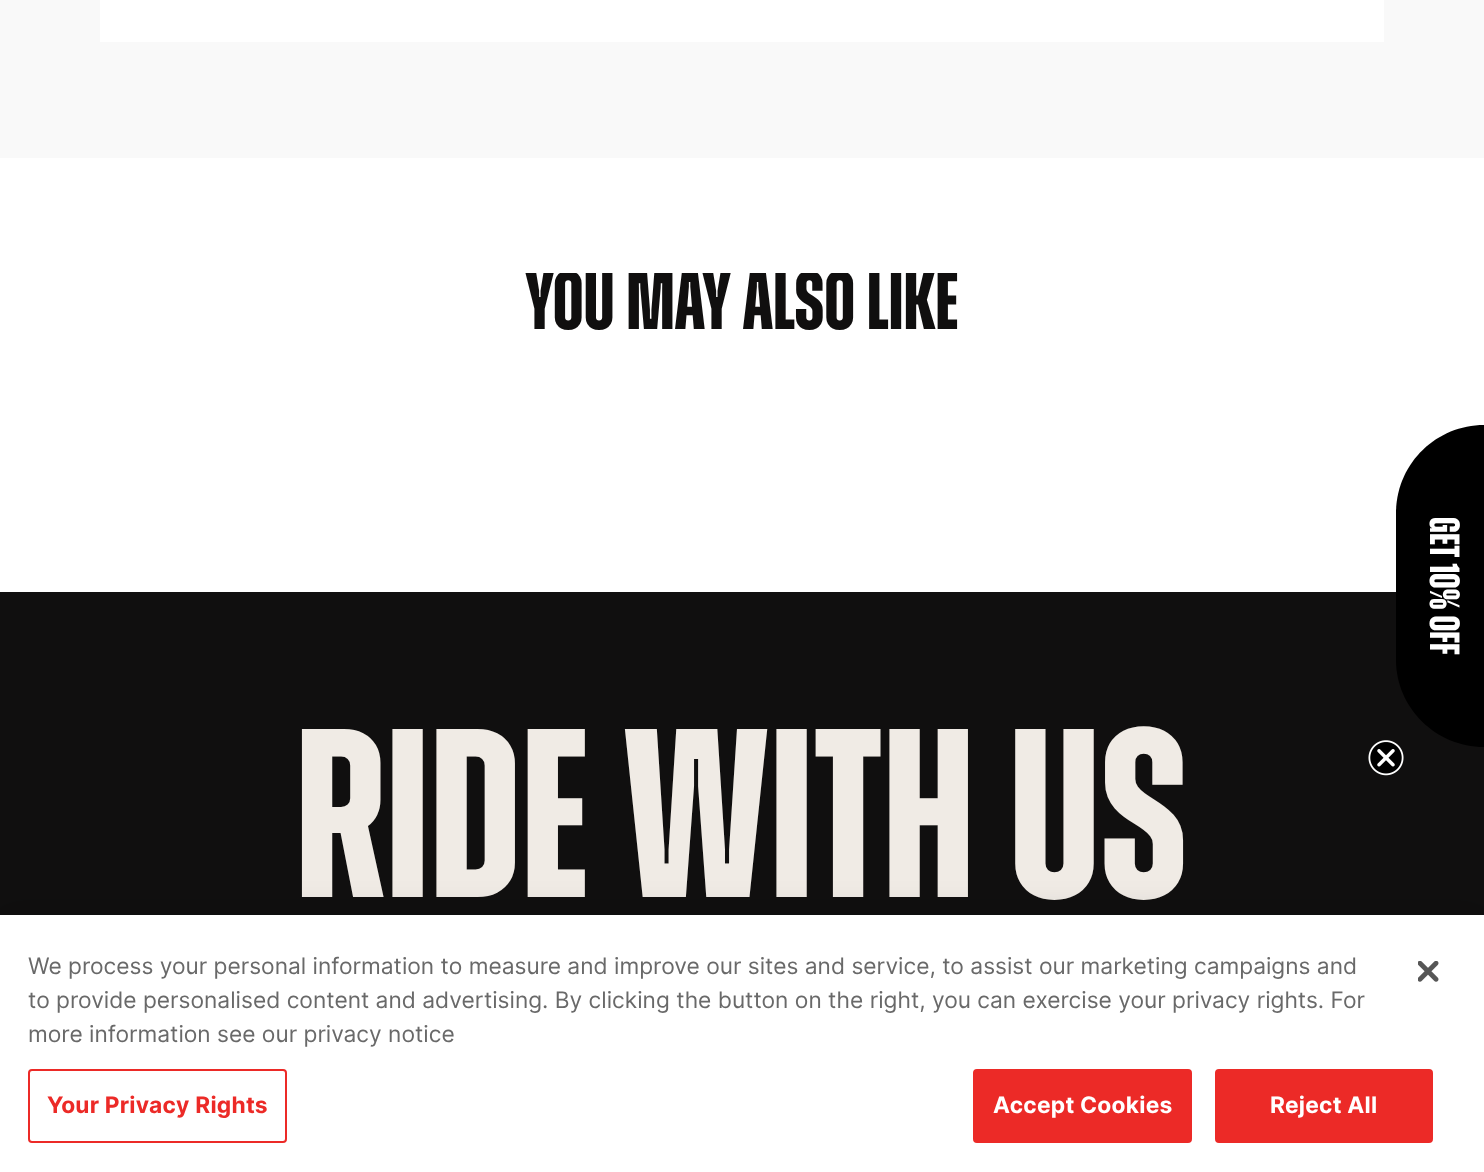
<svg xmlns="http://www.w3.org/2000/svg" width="1484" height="1172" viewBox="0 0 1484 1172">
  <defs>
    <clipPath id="clip1"><rect x="0" y="273" width="1484" height="201"/></clipPath>
    <filter id="blur1" x="-50%" y="-200%" width="200%" height="500%"><feGaussianBlur stdDeviation="16"/></filter>
  </defs>
  <rect width="100%" height="100%" fill="#ffffff"/>
  <rect x="0" y="0" width="1484" height="158" fill="#f9f9f9"/>
  <rect x="100" y="0" width="1284" height="42" fill="#ffffff"/>
  <g clip-path="url(#clip1)">
    <text x="525" y="329" font-family="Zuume" font-size="81.75" font-weight="bold" fill="#100f0f">YOU MAY ALSO LIKE</text>
  </g>
  <rect x="0" y="592" width="1484" height="323" fill="#100f0f"/>
  <path d="M1484 425V747C1436 747 1396 708 1396 660V513C1396 464 1436 425 1484 425Z" fill="#000000"/>
  <text x="1430" y="517" transform="rotate(90 1430 517)" font-family="Zuume" font-size="42" font-weight="bold" fill="#ffffff">Get 10% Off</text>
  <image x="1368" y="740" width="36" height="36" href="img1.png"/>
  <text x="295" y="897" font-family="Zuume" font-size="240" font-weight="bold" fill="#f0ebe5">RIDE WITH US</text>
  <rect x="0" y="915" width="1484" height="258" fill="#000000" fill-opacity="0.2" filter="url(#blur1)"/>
  <rect x="0" y="915" width="1484" height="257" fill="#ffffff"/>
  <text x="28" y="974" font-family="Inter" font-size="22.75" fill="#696969">We process your personal information to measure and improve our sites and service, to assist our marketing campaigns and</text>
  <text x="28" y="1008" font-family="Inter" font-size="22.75" fill="#696969">to provide personalised content and advertising. By clicking the button on the right, you can exercise your privacy rights. For</text>
  <text x="28" y="1042" font-family="Inter" font-size="22.75" fill="#696969">more information see our privacy notice</text>
  <rect x="29" y="1070" width="257" height="72" rx="3" fill="none" stroke="#ec2a27" stroke-width="2"/>
  <text x="47" y="1113" font-family="Inter" font-size="22.75" font-weight="bold" letter-spacing="0.25" fill="#ec2a27">Your Privacy Rights</text>
  <rect x="974" y="1070" width="217" height="72" rx="3" fill="#ec2a27" stroke="#ec2a27" stroke-width="2"/>
  <text x="993" y="1113" font-family="Inter" font-size="22.75" font-weight="bold" letter-spacing="0.25" fill="#ffffff">Accept Cookies</text>
  <rect x="1216" y="1070" width="216" height="72" rx="3" fill="#ec2a27" stroke="#ec2a27" stroke-width="2"/>
  <text x="1270" y="1113" font-family="Inter" font-size="22.75" font-weight="bold" letter-spacing="0.25" fill="#ffffff">Reject All</text>
  <image x="1418" y="961" width="21" height="21" href="img2.png"/>
</svg>
